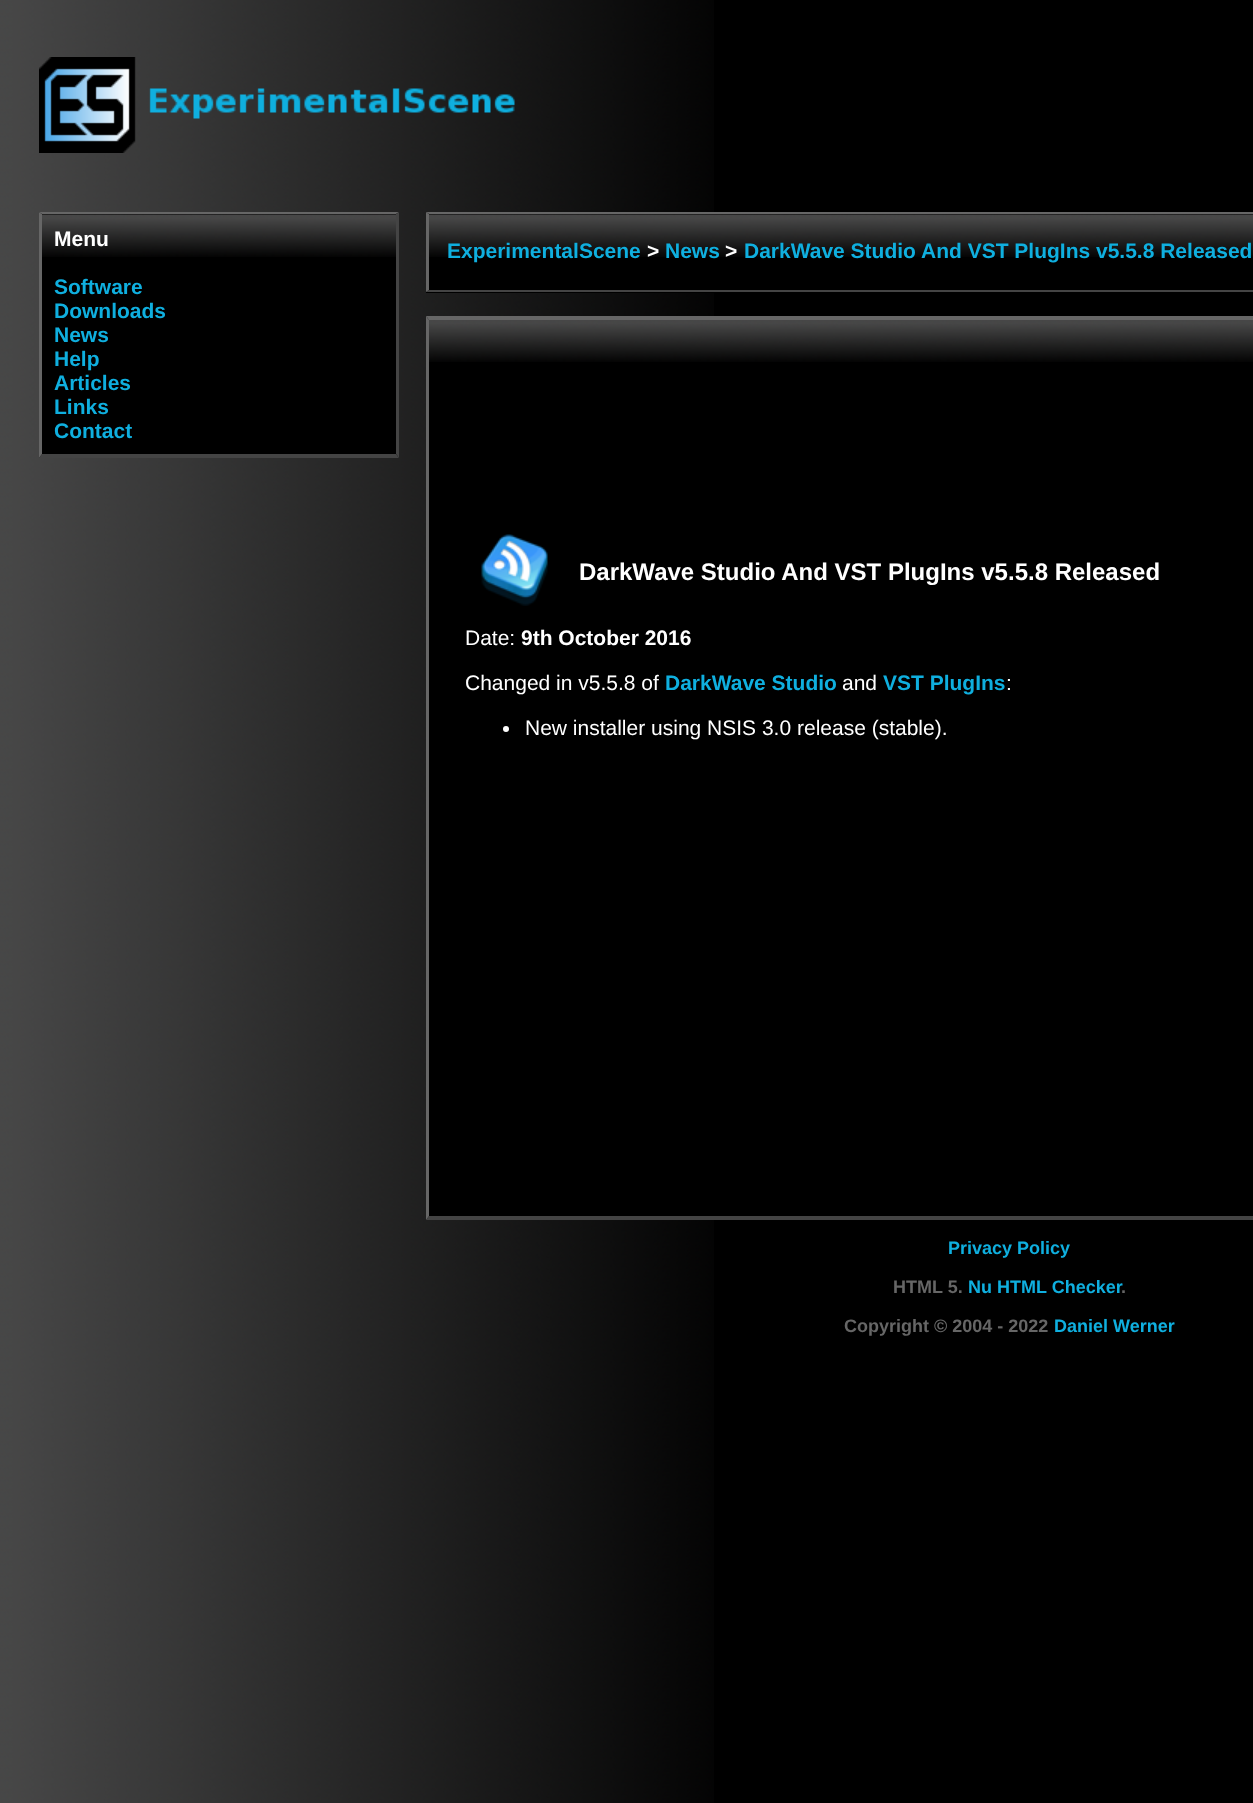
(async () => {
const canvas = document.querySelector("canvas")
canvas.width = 1253
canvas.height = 1803
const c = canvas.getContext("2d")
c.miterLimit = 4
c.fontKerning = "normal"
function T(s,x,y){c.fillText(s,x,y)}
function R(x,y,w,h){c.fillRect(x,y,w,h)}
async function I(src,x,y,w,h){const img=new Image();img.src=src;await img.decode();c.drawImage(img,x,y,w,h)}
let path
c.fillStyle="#000"
R(0,0,1253,1803)
await I("1.png",0,0,714,1803)
await I("2.png",39,57,476,96)
R(39,212,360,246)
await I("3.png",42,214,354,43)
c.fillStyle="#666"
path = new Path2D("M39 212h360l-3 2h-354z")
c.fill(path)
c.fillStyle="#444"
path = new Path2D("M399 212v246l-3-4v-240z")
c.fill(path)
path = new Path2D("M399 458h-360l3-4h354z")
c.fill(path)
c.fillStyle="#666"
path = new Path2D("M39 458v-246l3 2v240z")
c.fill(path)
c.font="bold 21px Liberation Sans"
c.fillStyle="#fff"
T("Menu",54,246)
c.fillStyle="#0fafdf"
T("Software",54,294)
T("Downloads",54,318)
T("News",54,342)
T("Help",54,366)
T("Articles",54,390)
T("Links",54,414)
T("Contact",54,438)
c.fillStyle="#000"
R(426,212,288,81)
await I("4.png",429,214,824,43)
c.fillStyle="#666"
path = new Path2D("M426 212h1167l-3 2h-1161z")
c.fill(path)
c.fillStyle="#444"
path = new Path2D("M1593 292h-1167l3-2h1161z")
c.fill(path)
c.fillStyle="#666"
path = new Path2D("M426 292v-80l3 2v76z")
c.fill(path)
c.fillStyle="#0fafdf"
T("ExperimentalScene",447,258)
c.fillStyle="#fff"
T(">",647,258)
c.fillStyle="#0fafdf"
T("News",665,258)
c.fillStyle="#fff"
T(">",725,258)
c.fillStyle="#0fafdf"
T("DarkWave Studio And VST PlugIns v5.5.8 Released",744,258)
c.fillStyle="#000"
R(426,317,288,903)
await I("5.png",428,319,825,43)
c.fillStyle="#666"
path = new Path2D("M426 316h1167l-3 4h-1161z")
c.fill(path)
c.fillStyle="#444"
path = new Path2D("M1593 1220h-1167l3-4h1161z")
c.fill(path)
c.fillStyle="#666"
path = new Path2D("M426 1220v-904l3 4v896z")
c.fill(path)
await I("6.png",481,534,67,72)
c.font="bold 24px Liberation Sans"
c.fillStyle="#fff"
T("DarkWave Studio And VST PlugIns v5.5.8 Released",579,580)
c.font="21px Liberation Sans"
T("Date:",465,645)
c.font="bold 21px Liberation Sans"
T("9th October 2016",521,645)
c.font="21px Liberation Sans"
T("Changed in v5.5.8 of",465,690)
c.font="bold 21px Liberation Sans"
c.fillStyle="#0fafdf"
T("DarkWave Studio",665,690)
c.font="21px Liberation Sans"
c.fillStyle="#fff"
T("and",842,690)
c.font="bold 21px Liberation Sans"
c.fillStyle="#0fafdf"
T("VST PlugIns",883,690)
c.font="21px Liberation Sans"
c.fillStyle="#fff"
T(":",1006,690)
c.beginPath()
c.arc(506,729,3,0,7)
c.fill()
T("New installer using NSIS 3.0 release (stable).",525,735)
c.font="bold 18px Liberation Sans"
c.fillStyle="#0fafdf"
T("Privacy Policy",948,1254)
c.fillStyle="#666"
T("HTML 5.",893,1293)
c.fillStyle="#0fafdf"
T("Nu HTML Checker",968,1293)
c.fillStyle="#666"
T(".",1121,1293)
T("Copyright © 2004 - 2022",844,1332)
c.fillStyle="#0fafdf"
T("Daniel Werner",1054,1332)
})()
